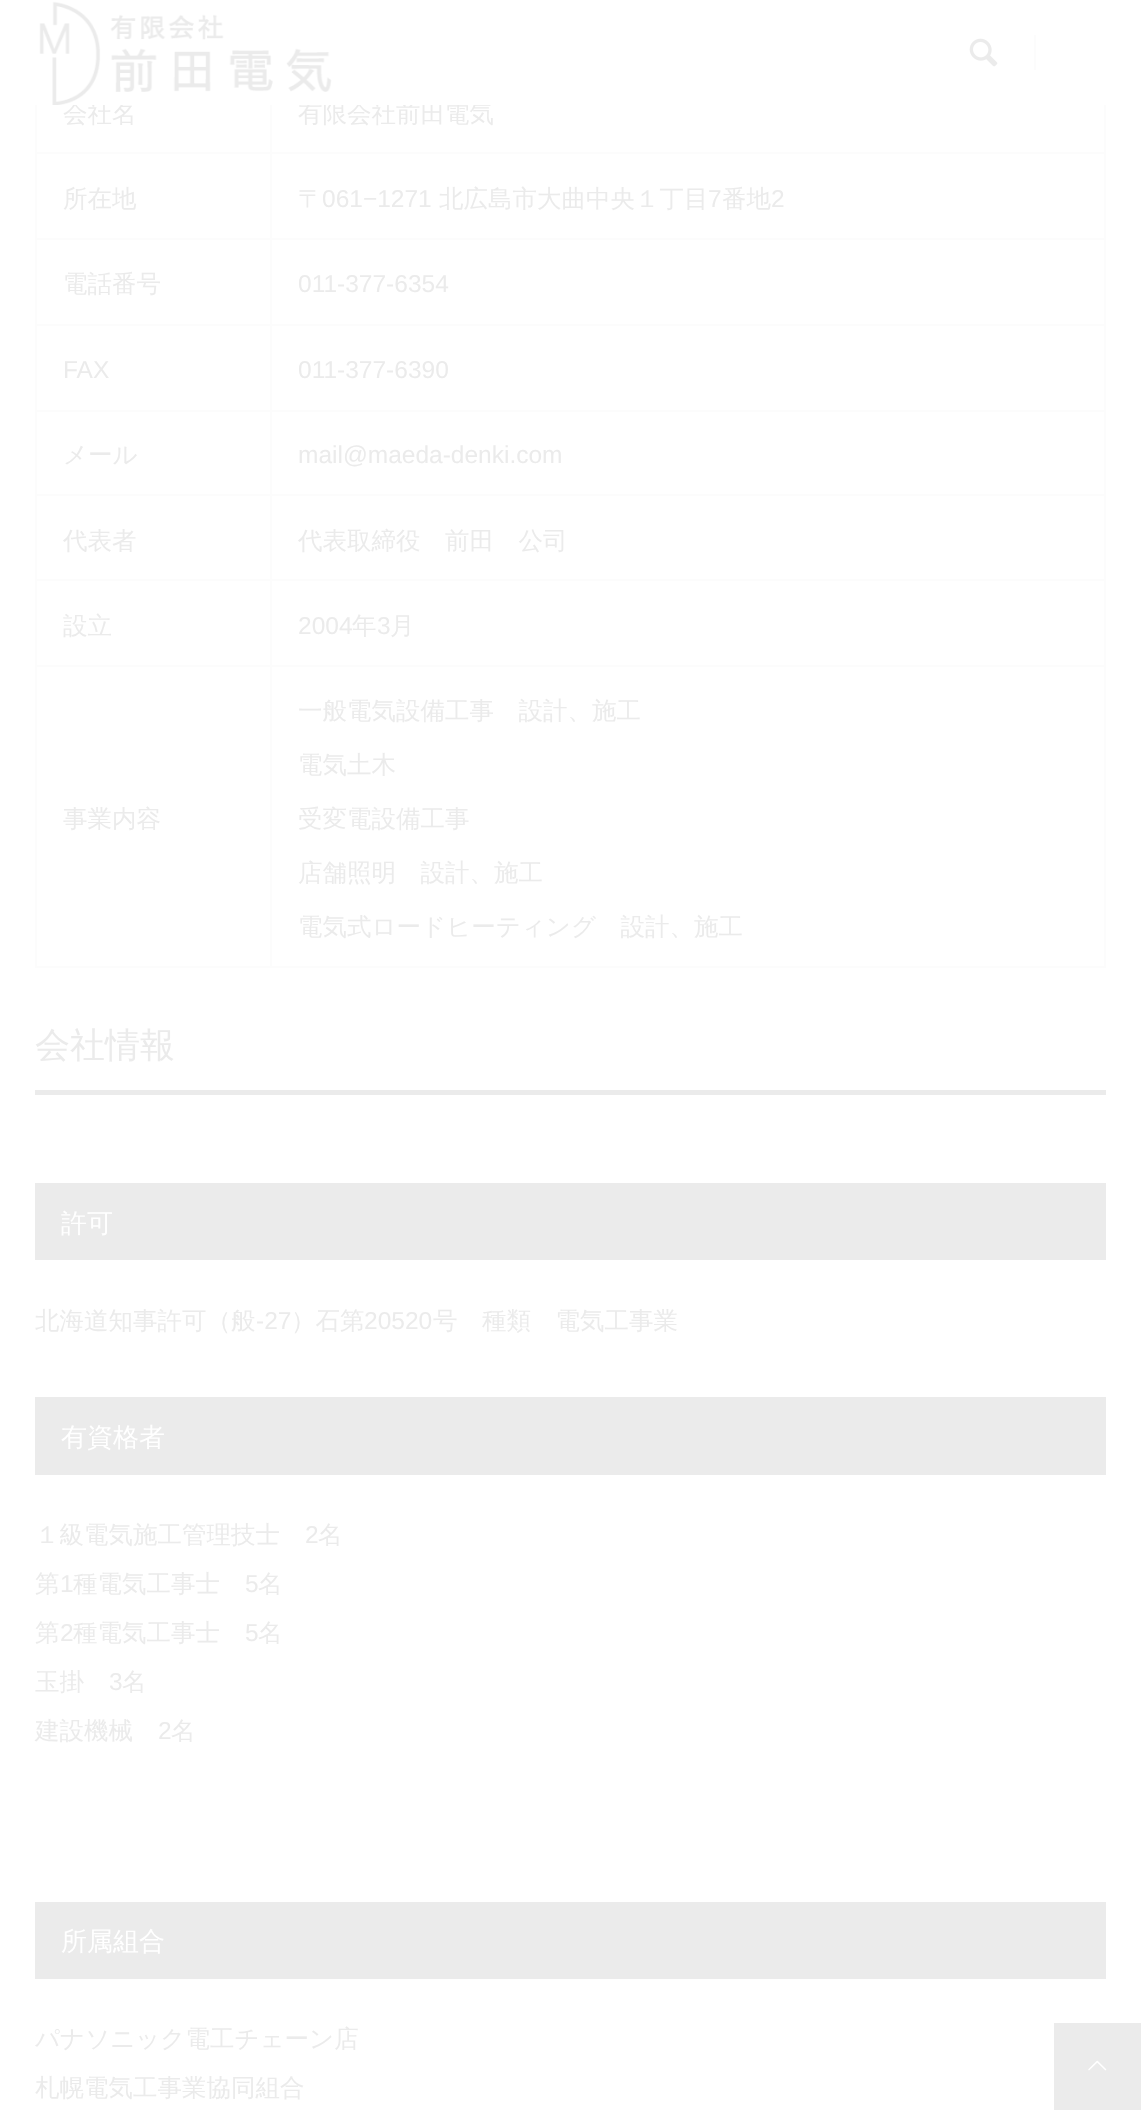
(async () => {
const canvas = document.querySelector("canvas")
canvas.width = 1141
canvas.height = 2110
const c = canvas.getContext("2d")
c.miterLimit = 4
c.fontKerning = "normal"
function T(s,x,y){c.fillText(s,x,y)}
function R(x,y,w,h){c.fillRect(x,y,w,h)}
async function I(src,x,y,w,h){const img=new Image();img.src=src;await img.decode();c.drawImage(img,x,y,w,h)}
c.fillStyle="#fff"
R(0,0,1141,2110)
c.font="500 24.5px WenQuanYi Zen Hei"
c.fillStyle="#ebebeb"
T("会社名",63,122)
T("有限会社前田電気",298,122)
c.fillStyle="#fff"
R(73,101,418,4)
await I("1.png",39,1,293,104)
await I("2.png",969,38,29,29)
c.fillStyle="#fcfcfc"
R(1034,35,2,35)
R(270,152,836,2)
R(270,238,836,2)
R(270,324,836,2)
R(270,410,836,2)
R(270,494,836,2)
R(270,579,836,2)
R(270,665,836,2)
R(1104,665,2,303)
R(270,966,836,2)
R(270,665,2,303)
R(35,665,236,2)
R(270,579,2,88)
R(35,579,236,2)
R(270,494,2,87)
R(35,494,236,2)
R(270,410,2,85)
R(35,410,236,2)
R(270,324,2,87)
R(35,324,236,2)
R(270,238,2,88)
R(35,238,236,2)
R(270,152,2,88)
R(35,152,236,2)
R(270,105,2,49)
R(35,966,236,2)
R(35,665,2,303)
R(35,579,2,88)
R(35,494,2,87)
R(35,410,2,85)
R(35,324,2,87)
R(35,238,2,88)
R(35,105,2,135)
c.fillStyle="#ebebeb"
T("所在地",63,207)
c.fillStyle="#fcfcfc"
R(1104,579,2,88)
R(1104,494,2,87)
R(1104,410,2,85)
R(1104,324,2,87)
R(1104,238,2,88)
R(1104,105,2,135)
c.fillStyle="#ebebeb"
T("〒",298,207)
c.font="24.5px Liberation Sans"
T("061−1271",322,207)
c.font="500 24.5px WenQuanYi Zen Hei"
T("北広島市大曲中央１丁目",439,207)
c.font="24.5px Liberation Sans"
T("7",708,207)
c.font="500 24.5px WenQuanYi Zen Hei"
T("番地",722,207)
c.font="24.5px Liberation Sans"
T("2",771,207)
c.font="500 24.5px WenQuanYi Zen Hei"
T("電話番号",63,292)
c.font="24.5px Liberation Sans"
T("011-377-6354",298,292)
T("FAX",63,378)
T("011-377-6390",298,378)
c.font="500 24.5px WenQuanYi Zen Hei"
T("メール",63,463)
c.font="24.5px Liberation Sans"
T("mail@maeda-denki.com",298,463)
c.font="500 24.5px WenQuanYi Zen Hei"
T("代表者",63,549)
T("代表取締役　前田　公司",298,549)
T("設立",63,634)
c.font="24.5px Liberation Sans"
T("2004",298,634)
c.font="500 24.5px WenQuanYi Zen Hei"
T("年",352,634)
c.font="24.5px Liberation Sans"
T("3",377,634)
c.font="500 24.5px WenQuanYi Zen Hei"
T("月",390,634)
T("事業内容",63,827)
T("一般電気設備工事　設計、施工",298,719)
T("電気土木",298,773)
T("受変電設備工事",298,827)
T("店舗照明　設計、施工",298,881)
T("電気式ロードヒーティング　設計、施工",298,935)
R(35,1090,1071,5)
c.font="500 35px WenQuanYi Zen Hei"
T("会社情報",35,1057)
R(35,1183,1071,77)
c.font="500 26px WenQuanYi Zen Hei"
c.fillStyle="#fff"
T("許可",61,1232)
c.font="500 24.5px WenQuanYi Zen Hei"
c.fillStyle="#ebebeb"
T("北海道知事許可（般",35,1329)
c.font="24.5px Liberation Sans"
T("-27",256,1329)
c.font="500 24.5px WenQuanYi Zen Hei"
T("）石第",291,1329)
c.font="24.5px Liberation Sans"
T("20520",364,1329)
c.font="500 24.5px WenQuanYi Zen Hei"
T("号　種類　電気工事業",433,1329)
R(35,1397,1071,78)
c.font="500 26px WenQuanYi Zen Hei"
c.fillStyle="#fff"
T("有資格者",61,1446)
c.font="500 24.5px WenQuanYi Zen Hei"
c.fillStyle="#ebebeb"
T("１級電気施工管理技士",35,1543)
c.font="24.5px Liberation Sans"
T("2",305,1543)
c.font="500 24.5px WenQuanYi Zen Hei"
T("名",318,1543)
T("第",35,1592)
c.font="24.5px Liberation Sans"
T("1",60,1592)
c.font="500 24.5px WenQuanYi Zen Hei"
T("種電気工事士",73,1592)
c.font="24.5px Liberation Sans"
T("5",245,1592)
c.font="500 24.5px WenQuanYi Zen Hei"
T("名",258,1592)
T("第",35,1641)
c.font="24.5px Liberation Sans"
T("2",60,1641)
c.font="500 24.5px WenQuanYi Zen Hei"
T("種電気工事士",73,1641)
c.font="24.5px Liberation Sans"
T("5",245,1641)
c.font="500 24.5px WenQuanYi Zen Hei"
T("名",258,1641)
T("玉掛",35,1690)
c.font="24.5px Liberation Sans"
T("3",109,1690)
c.font="500 24.5px WenQuanYi Zen Hei"
T("名",122,1690)
T("建設機械",35,1739)
c.font="24.5px Liberation Sans"
T("2",158,1739)
c.font="500 24.5px WenQuanYi Zen Hei"
T("名",171,1739)
R(35,1902,1071,77)
c.font="500 26px WenQuanYi Zen Hei"
c.fillStyle="#fff"
T("所属組合",61,1950)
c.font="500 24.5px WenQuanYi Zen Hei"
c.fillStyle="#ebebeb"
T("パナソニック電工チェーン店",35,2047)
T("札幌電気工事業協同組合",35,2096)
R(1054,2023,87,87)
await I("3.png",1088,2060,19,11)
})()
